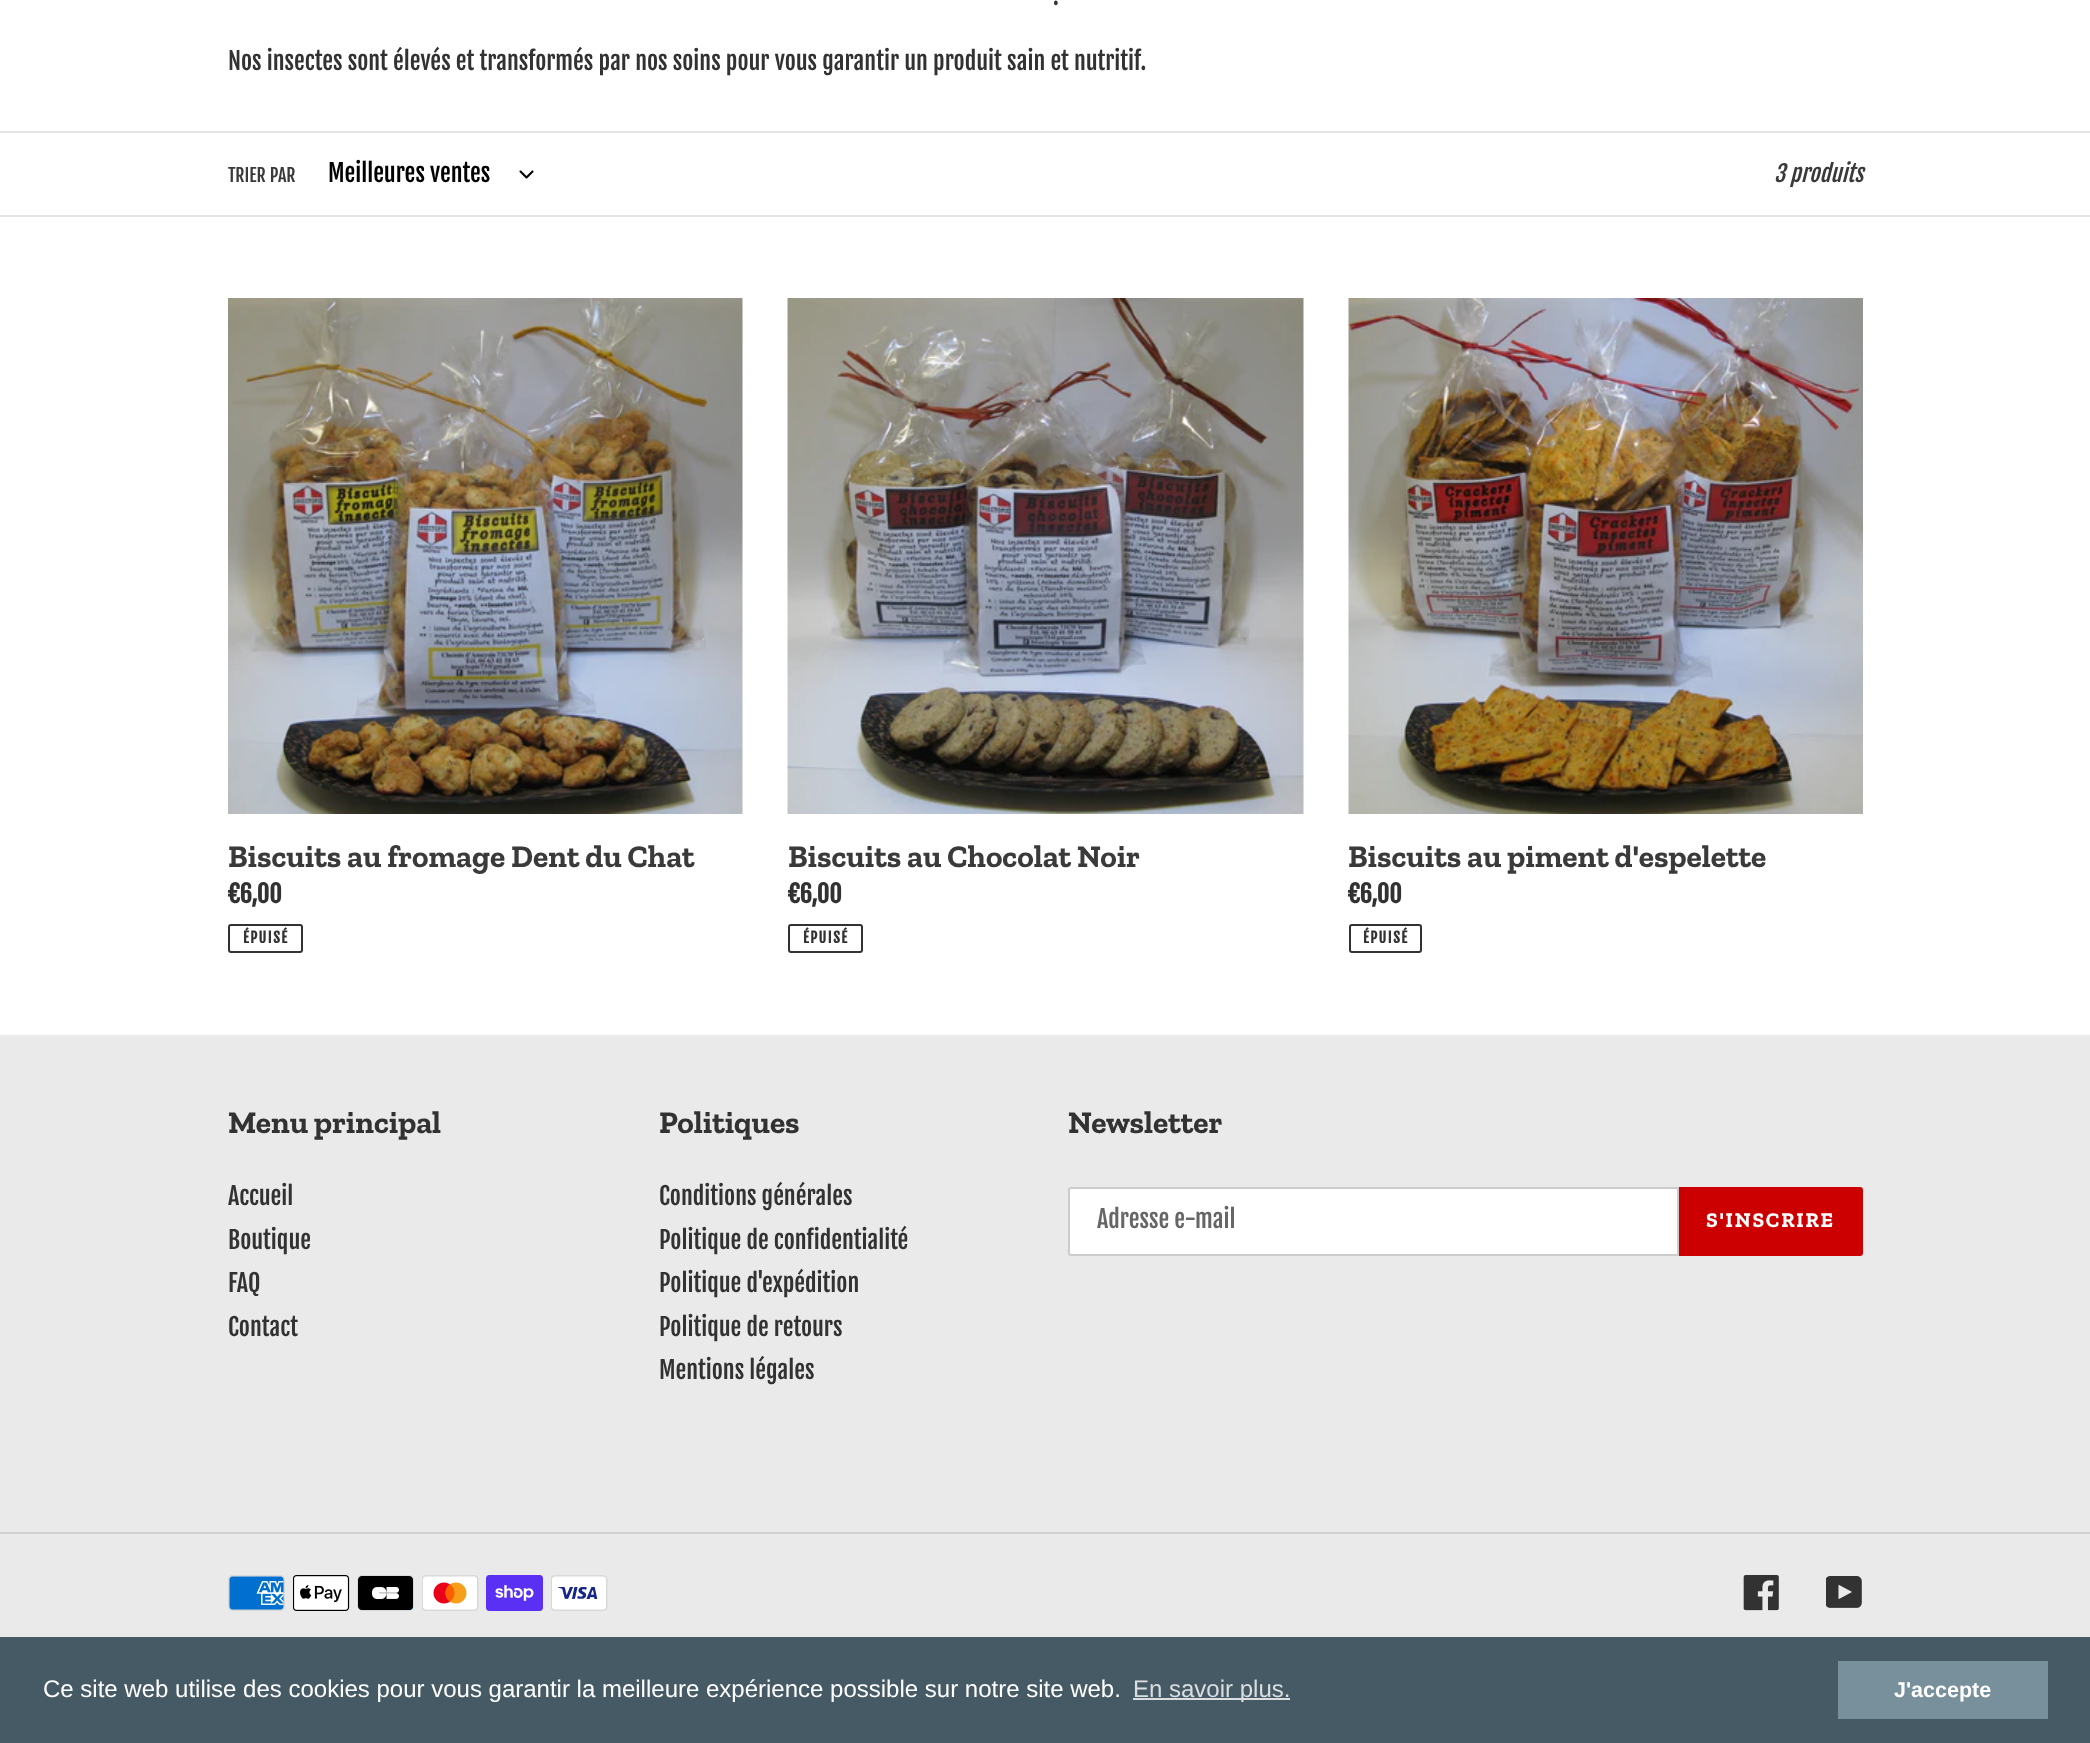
(async () => {
const canvas = document.querySelector("canvas")
canvas.width = 2090
canvas.height = 1743
const c = canvas.getContext("2d")
c.miterLimit = 4
c.fontKerning = "normal"
function T(s,x,y){c.fillText(s,x,y)}
function R(x,y,w,h){c.fillRect(x,y,w,h)}
async function I(src,x,y,w,h){const img=new Image();img.src=src;await img.decode();c.drawImage(img,x,y,w,h)}
c.fillStyle="#fff"
R(0,0,2090,1743)
c.font="24px Fjalla One"
c.fillStyle="#333232"
T(".",1053,5)
T("Nos insectes sont élevés et transformés par nos soins pour vous garantir un produit sain et nutritif.",228,70)
c.fillStyle="#e4e4e4"
R(0,131,2090,2)
R(0,215,2090,2)
c.font="18px Fjalla One"
c.fillStyle="#3a3a3a"
T("TRIER PAR",228,182)
c.font="24px Fjalla One"
c.fillStyle="#000"
T("Meilleures ventes",328,182)
await I("1.png",519,170,15,9)
c.font="italic 22.5px Fjalla One"
c.fillStyle="#3a3a3a"
T("3 produits",1774,182)
await I("2.png",228,298,515,516)
c.font="bold 31.5px Zilla Slab"
T("Biscuits au fromage Dent du Chat",228,867)
c.font="bold 24px Fjalla One"
c.fillStyle="#333232"
T("€6,00",228,903)
c.beginPath()
c.roundRect(229,925,73,27,2)
c.strokeStyle="#333232"
c.lineWidth=2
c.stroke()
c.letterSpacing="1.5px"
c.font="bold 14.5px Fjalla One"
T("ÉPUISÉ",243,943)
await I("3.png",787,298,517,516)
c.letterSpacing="0px"
c.font="bold 31.5px Zilla Slab"
c.fillStyle="#3a3a3a"
T("Biscuits au Chocolat Noir",788,867)
c.font="bold 24px Fjalla One"
c.fillStyle="#333232"
T("€6,00",788,903)
c.beginPath()
c.roundRect(789,925,73,27,2)
c.stroke()
c.letterSpacing="1.5px"
c.font="bold 14.5px Fjalla One"
T("ÉPUISÉ",803,943)
await I("4.png",1348,298,515,516)
c.letterSpacing="0px"
c.font="bold 31.5px Zilla Slab"
c.fillStyle="#3a3a3a"
T("Biscuits au piment d'espelette",1348,867)
c.font="bold 24px Fjalla One"
c.fillStyle="#333232"
T("€6,00",1348,903)
c.beginPath()
c.roundRect(1350,925,71,27,2)
c.stroke()
c.letterSpacing="1.5px"
c.font="bold 14.5px Fjalla One"
T("ÉPUISÉ",1363,943)
c.fillStyle="#eaeaea"
R(0,1035,2090,602)
c.letterSpacing="0px"
c.font="bold 31.5px Zilla Slab"
c.fillStyle="#333232"
T("Menu principal",228,1133)
c.font="24px Fjalla One"
T("Accueil",228,1205)
T("Boutique",228,1249)
T("FAQ",228,1292)
T("Contact",228,1336)
c.font="bold 31.5px Zilla Slab"
T("Politiques",659,1133)
c.font="24px Fjalla One"
T("Conditions générales",659,1205)
T("Politique de confidentialité",659,1249)
T("Politique d'expédition",659,1292)
T("Politique de retours",659,1336)
T("Mentions légales",659,1379)
c.font="bold 31.5px Zilla Slab"
T("Newsletter",1068,1133)
c.fillStyle="#fff"
c.beginPath()
c.roundRect(1069,1188,609,67,[2,0,0,2])
c.fill()
c.strokeStyle="#ccc"
c.stroke()
c.font="24px Fjalla One"
c.fillStyle="#666"
T("Adresse e-mail",1097,1228)
c.fillStyle="#cc0001"
c.beginPath()
c.roundRect(1679,1187,184,69,[0,3,3,0])
c.fill()
c.letterSpacing="1.75px"
c.font="bold 21px Zilla Slab"
c.fillStyle="#fff"
T("S'INSCRIRE",1706,1227)
c.fillStyle="#d1d1d1"
R(0,1532,2090,2)
await I("5.png",228,1575,57,36)
await I("6.png",293,1575,57,36)
await I("7.png",357,1575,57,36)
await I("8.png",422,1575,57,36)
await I("9.png",486,1575,57,36)
await I("10.png",551,1575,57,36)
await I("11.png",1743,1575,36,36)
await I("12.png",1826,1576,36,32)
c.fillStyle="#455a64"
R(0,1637,2090,106)
c.letterSpacing="0px"
c.font="24px Liberation Sans"
c.fillStyle="#fff"
T("Ce site web utilise des cookies pour vous garantir la meilleure expérience possible sur notre site web.",43,1697)
c.fillStyle="#dadee0"
R(1133,1698,157,2)
T("En savoir plus.",1133,1697)
c.fillStyle="#78909c"
R(1838,1661,210,58)
c.font="bold 21.5px Liberation Sans"
c.fillStyle="#fff"
T("J'accepte",1894,1697)
})()
